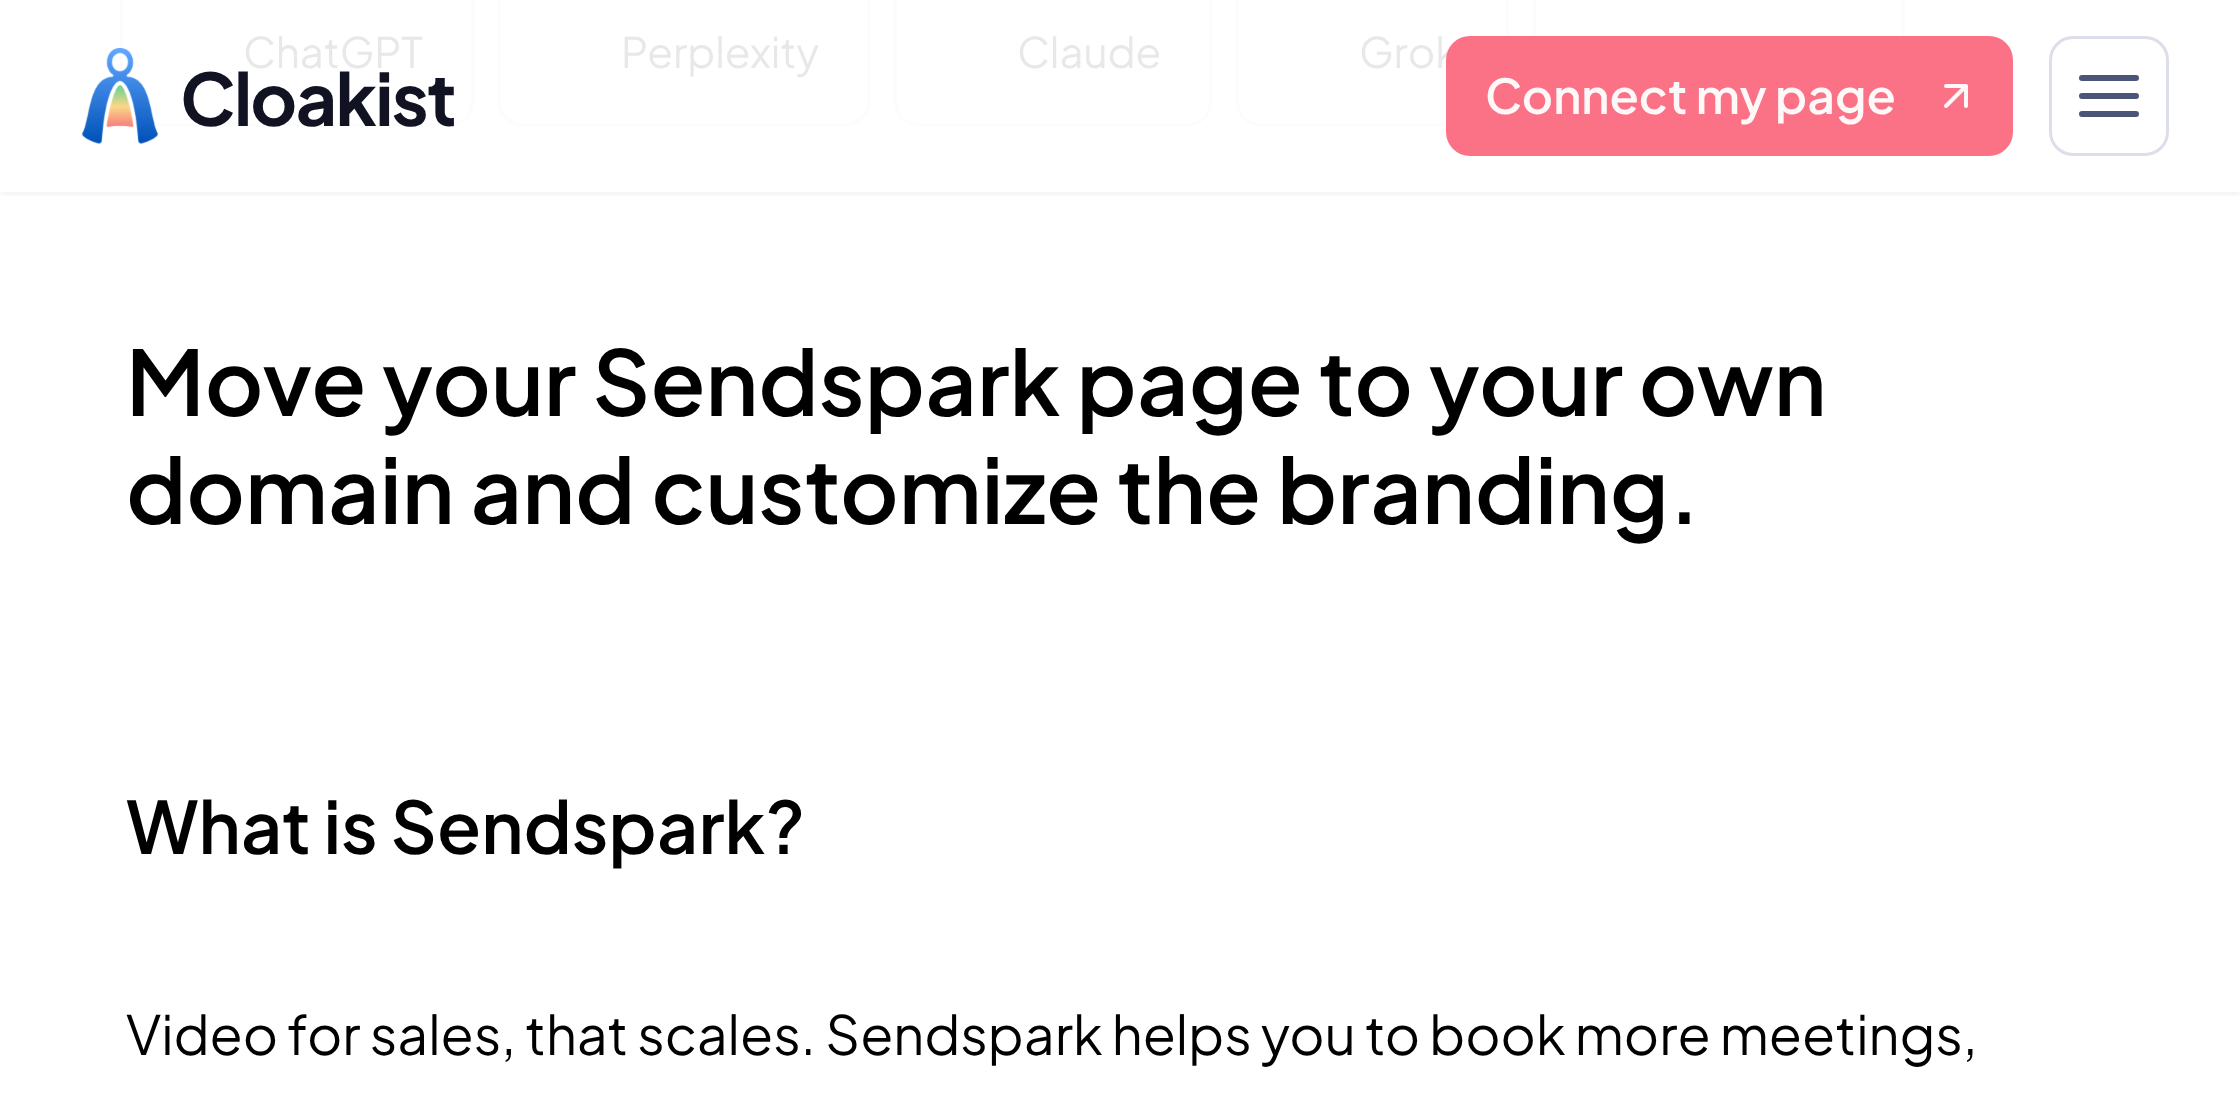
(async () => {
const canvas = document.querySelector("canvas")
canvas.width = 2240
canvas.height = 1095
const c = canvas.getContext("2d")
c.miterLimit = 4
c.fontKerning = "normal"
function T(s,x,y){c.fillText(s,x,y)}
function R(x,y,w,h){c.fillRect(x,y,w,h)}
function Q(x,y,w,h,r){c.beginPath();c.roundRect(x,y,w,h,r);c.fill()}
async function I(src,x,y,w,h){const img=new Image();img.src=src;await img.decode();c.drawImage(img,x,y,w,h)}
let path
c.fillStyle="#fff"
R(0,0,2240,1095)
c.beginPath()
c.roundRect(121.5,-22.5,351,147,22.5)
c.strokeStyle="#fcfcfd"
c.lineWidth=3
c.stroke()
c.font="42px Plus Jakarta Sans"
c.fillStyle="#e8e8e8"
T("ChatGPT",243,68)
c.beginPath()
c.roundRect(499.5,-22.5,369,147,22.5)
c.stroke()
T("Perplexity",621,68)
c.beginPath()
c.roundRect(895.5,-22.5,315,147,22.5)
c.stroke()
T("Claude",1017,68)
c.beginPath()
c.roundRect(1237.5,-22.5,270,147,22.5)
c.stroke()
T("Grok",1359,68)
c.strokeRect(1534.5,-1.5,369,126)
c.font="600 90px Plus Jakarta Sans"
c.fillStyle="#000"
T("Move your Sendspark page to your own",126,416)
T("domain and customize the branding.",126,524)
c.font="600 72px Plus Jakarta Sans"
T("What is Sendspark?",126,854)
c.font="54px Plus Jakarta Sans"
T("Video for sales, that scales. Sendspark helps you to book more meetings,",126,1055)
c.save()
c.beginPath()
c.rect(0,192,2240,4)
c.clip()
c.fillStyle="#0000000d"
c.filter="blur(3px)"
c.beginPath()
c.rect(0,3,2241,192)
c.fill()
c.filter="none"
c.restore()
await I("1.png",81,48,78,96)
c.letterSpacing="-1.75px"
c.font="bold 72px Plus Jakarta Sans"
c.fillStyle="#111322"
T("Cloakist",180,126)
c.fillStyle="#fb7185"
Q(1446,36,567,120,24)
c.letterSpacing="0px"
c.font="600 48px Plus Jakarta Sans"
c.fillStyle="#fff8f9"
T("Connect my page",1485,114)
path = new Path2D("M1946 106l20-20m0 0h-20m20 0v20")
c.strokeStyle="#fff8f9"
c.lineWidth=4
c.lineCap="round"
c.lineJoin="round"
c.stroke(path)
c.beginPath()
c.roundRect(2050.5,37.5,117,117,22.5)
c.strokeStyle="#dcdfea"
c.lineWidth=3
c.lineJoin="miter"
c.stroke()
path = new Path2D("M2082 96h54m-54-18h54m-54 36h54")
c.strokeStyle="#4a5578"
c.lineWidth=6
c.lineJoin="round"
c.stroke(path)
})()
